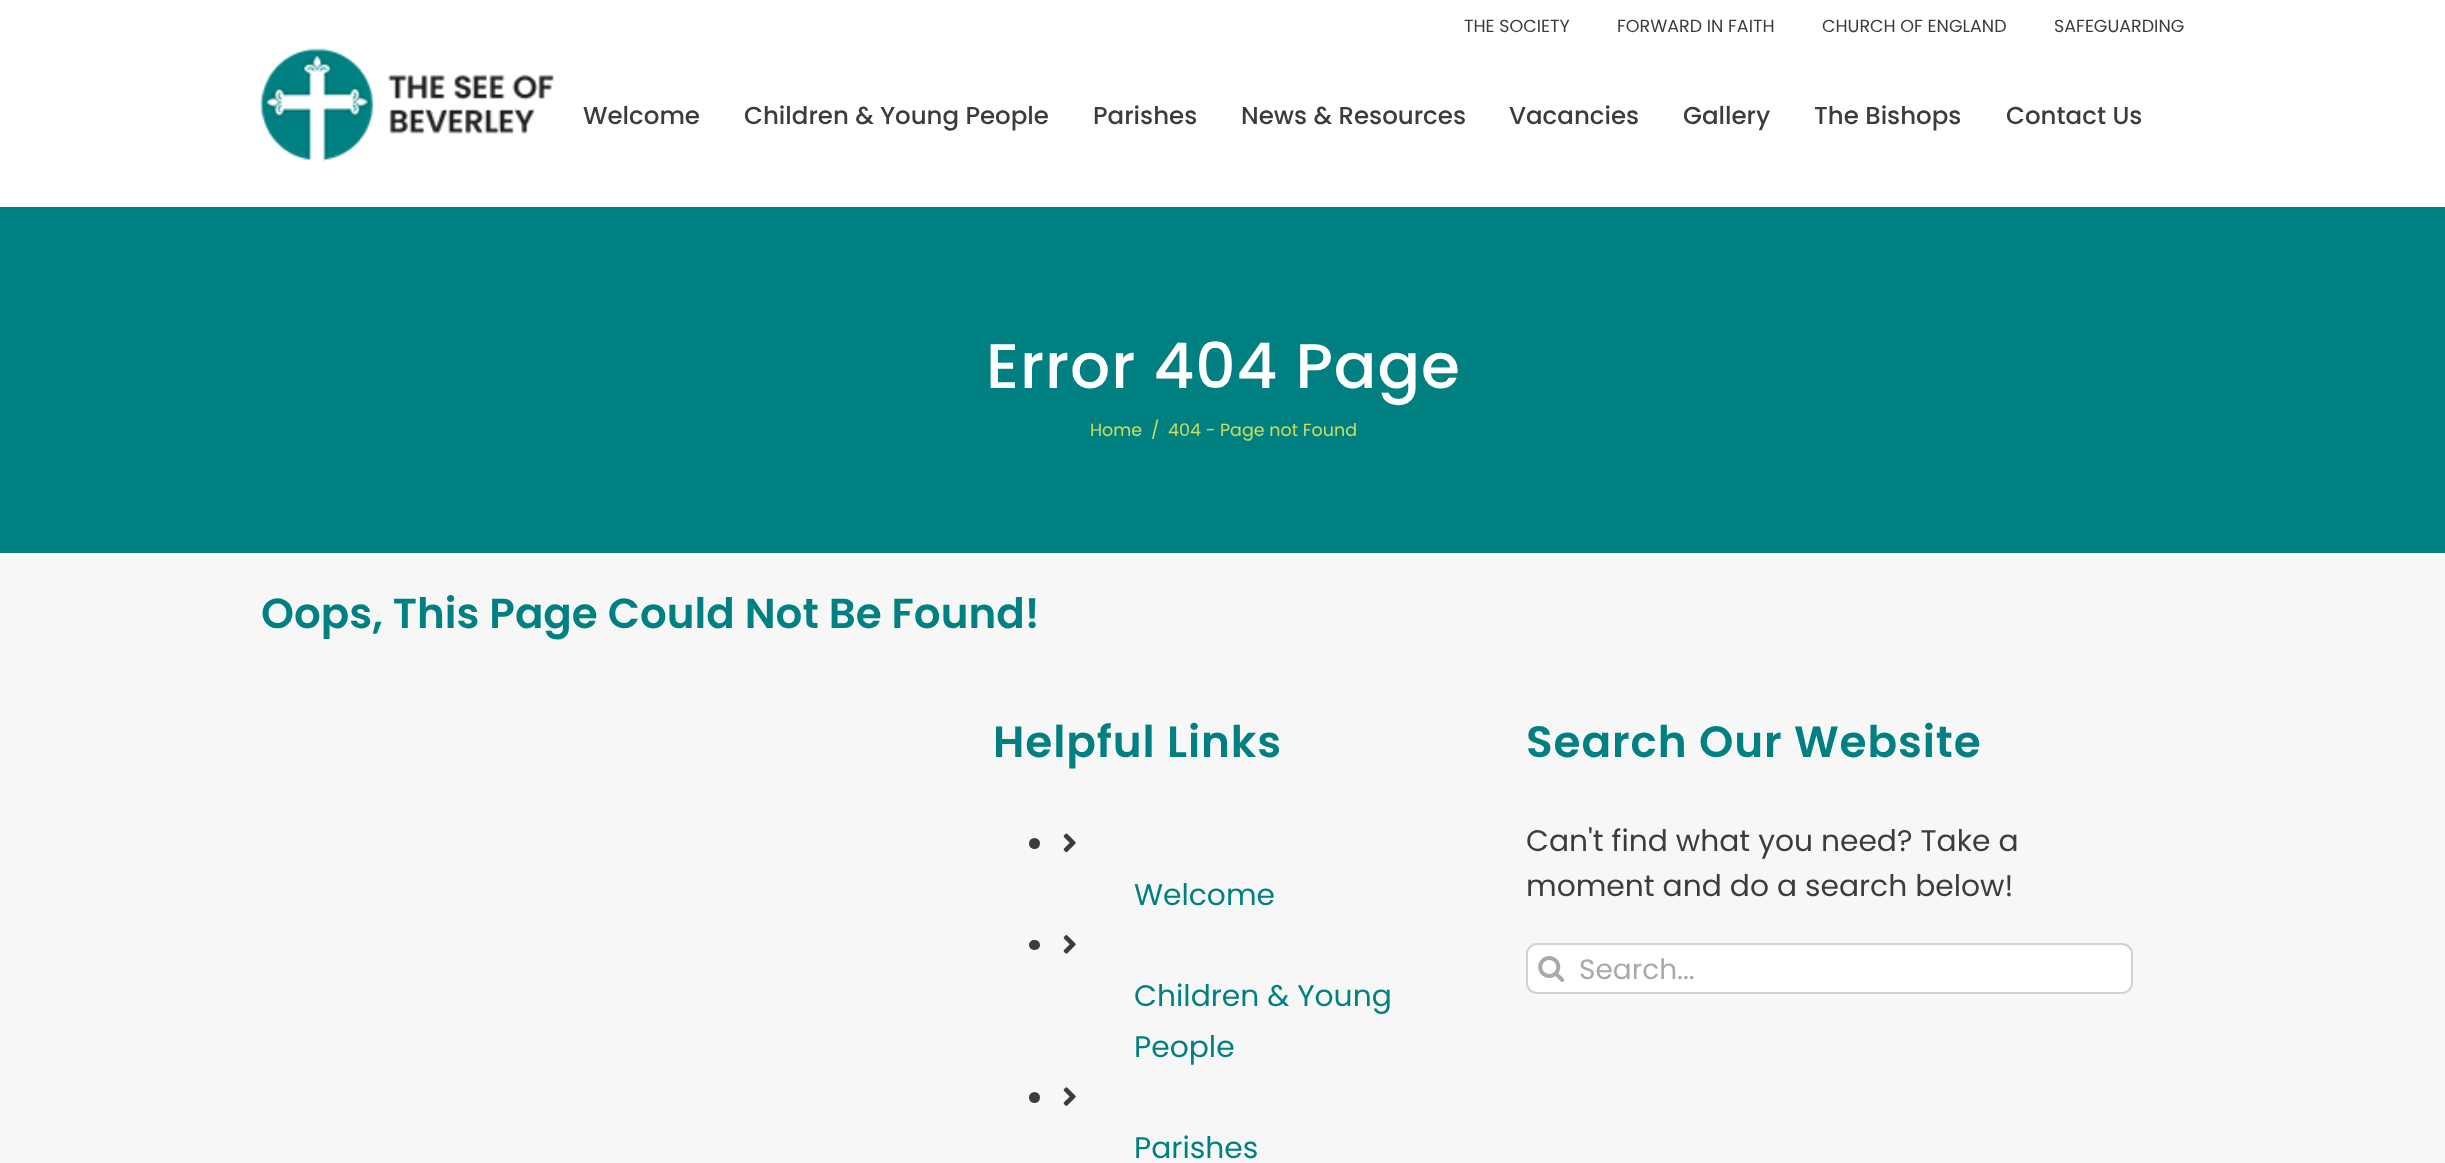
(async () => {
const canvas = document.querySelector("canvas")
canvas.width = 2445
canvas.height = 1163
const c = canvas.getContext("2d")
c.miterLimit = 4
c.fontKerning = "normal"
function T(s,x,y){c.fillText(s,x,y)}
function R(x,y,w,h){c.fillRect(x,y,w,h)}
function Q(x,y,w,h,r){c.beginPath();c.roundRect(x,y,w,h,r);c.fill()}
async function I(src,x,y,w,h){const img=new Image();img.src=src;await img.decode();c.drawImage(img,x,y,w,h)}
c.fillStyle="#f7f7f7"
R(0,0,2445,1163)
c.fillStyle="#fff"
R(0,0,2445,205)
c.font="17.5px Poppins"
c.fillStyle="#3c3c3c"
T("THE SOCIETY",1464,32)
T("FORWARD IN FAITH",1617,32)
T("CHURCH OF ENGLAND",1822,32)
T("SAFEGUARDING",2054,32)
await I("1.png",260,48,294,114)
c.font="500 24.5px Poppins"
T("Welcome",583,124)
T("Children & Young People",744,124)
T("Parishes",1093,124)
T("News & Resources",1241,124)
T("Vacancies",1509,124)
T("Gallery",1683,124)
T("The Bishops",1814,124)
T("Contact Us",2006,124)
c.fillStyle="#008080"
R(0,207,2445,346)
c.fillStyle="#fff"
R(0,205,2445,2)
R(0,553,2445,2)
c.letterSpacing="0.9px"
c.font="500 63px Poppins"
T("Error 404 Page",986,388)
c.letterSpacing="0px"
c.font="17.5px Poppins"
c.fillStyle="#d0dc57"
T("Home",1090,436)
T("/",1151,436)
T("404 - Page not Found",1168,436)
c.font="600 42px Poppins"
c.fillStyle="#008080"
T("Oops, This Page Could Not Be Found!",261,628)
c.letterSpacing="0.9px"
c.font="600 43.75px Poppins"
T("Helpful Links",993,757)
c.fillStyle="#3c3c3c"
c.beginPath()
c.arc(1034.5,843.5,5.5,0,7)
c.fill()
await I("2.png",1063,833,13,20)
c.letterSpacing="0px"
c.font="29.75px Poppins"
c.fillStyle="#008080"
T("Welcome",1134,905)
c.fillStyle="#3c3c3c"
Q(1029,940,11,10,5)
await I("3.png",1063,935,13,19)
c.fillStyle="#008080"
T("Children & Young",1134,1006)
T("People",1134,1057)
c.fillStyle="#3c3c3c"
c.beginPath()
c.arc(1034.5,1097.5,5.5,0,7)
c.fill()
await I("4.png",1063,1087,13,19)
c.fillStyle="#008080"
T("Parishes",1134,1158)
c.letterSpacing="0.9px"
c.font="600 43.75px Poppins"
T("Search Our Website",1526,757)
c.letterSpacing="0px"
c.font="29.75px Poppins"
c.fillStyle="#3c3c3c"
T("Can't find what you need? Take a",1526,851)
T("moment and do a search below!",1526,896)
c.fillStyle="#fff"
c.beginPath()
c.roundRect(1527,944,605,49,10)
c.fill()
c.strokeStyle="#d2d2d2"
c.lineWidth=2
c.stroke()
await I("5.png",1538,956,27,26)
c.font="28px Poppins"
c.fillStyle="#aaa9a9"
T("Search...",1579,979)
})()
